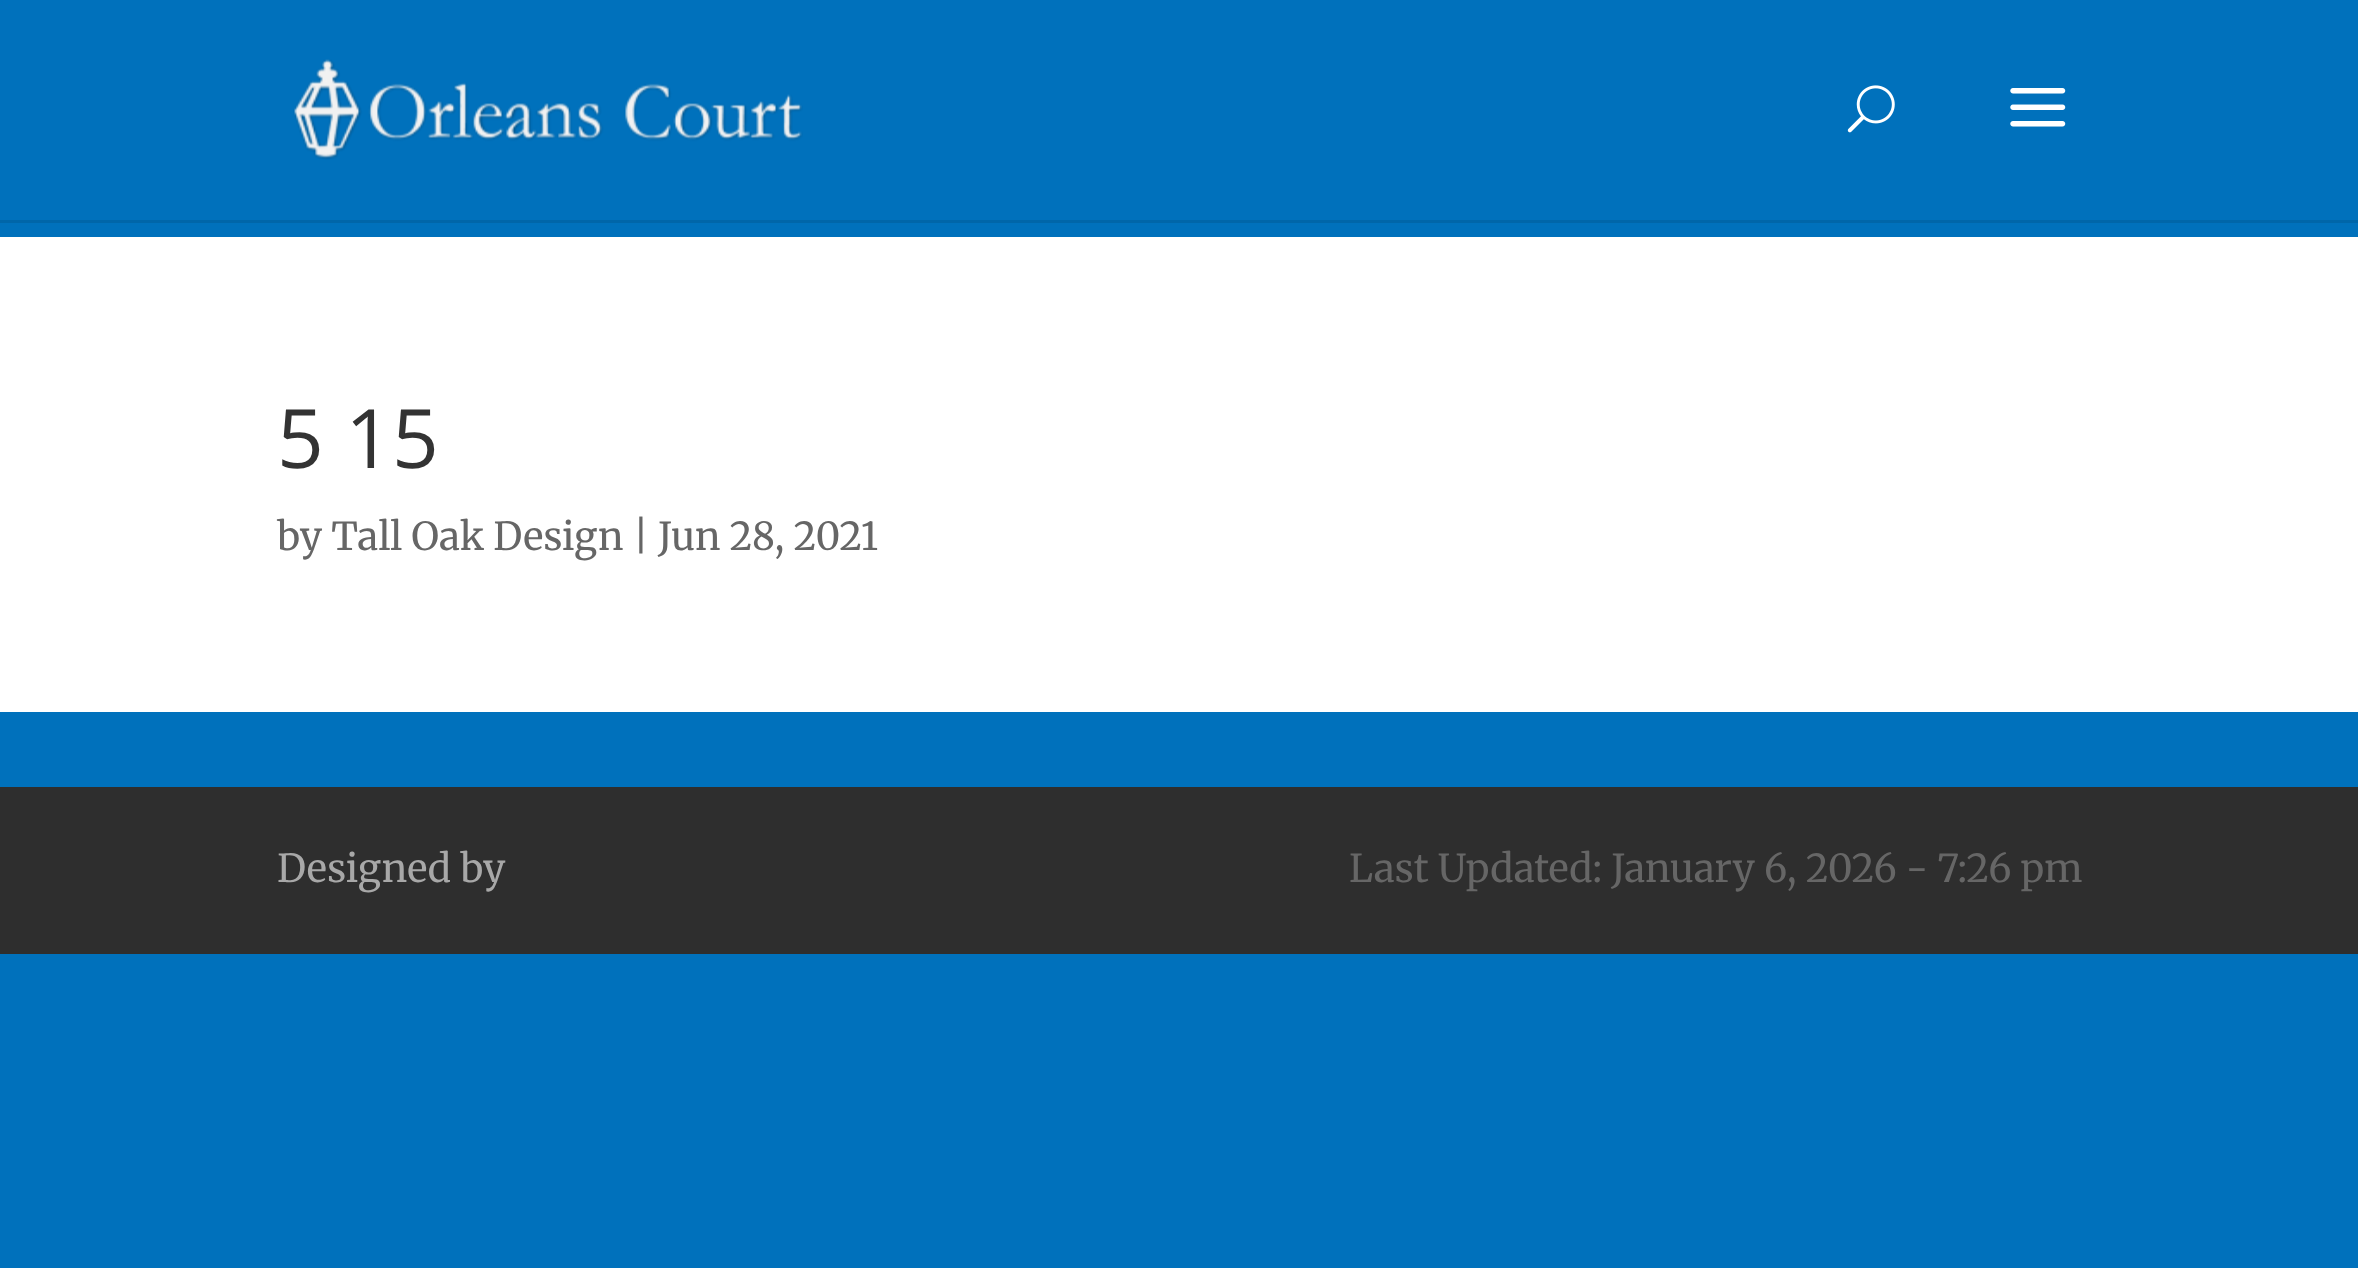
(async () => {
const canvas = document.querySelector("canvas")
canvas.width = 2358
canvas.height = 1268
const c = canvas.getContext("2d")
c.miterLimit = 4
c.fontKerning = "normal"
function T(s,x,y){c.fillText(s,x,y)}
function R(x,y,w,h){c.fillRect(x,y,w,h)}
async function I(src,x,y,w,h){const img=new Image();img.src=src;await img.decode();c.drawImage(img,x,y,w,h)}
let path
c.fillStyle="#0071bc"
R(0,0,2358,1268)
c.fillStyle="#0066a9"
path = new Path2D("M0 220v3h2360v-220v217z")
c.fill(path)
await I("1.png",293,59,510,101)
await I("2.png",1847,85,48,48)
await I("3.png",2010,88,56,39)
c.fillStyle="#fff"
R(0,237,2358,475)
c.font="82px Open Sans"
c.fillStyle="#333"
T("5 15",277,468)
c.font="38.5px Merriweather"
c.fillStyle="#666"
T("by Tall Oak Design | Jun 28, 2021",277,550)
c.fillStyle="#2e2e2e"
R(0,787,2358,167)
c.fillStyle="#a8a8a8"
T("Designed by",277,882)
c.fillStyle="#666"
T("Last Updated: January 6, 2026 - 7:26 pm",1349,882)
})()
